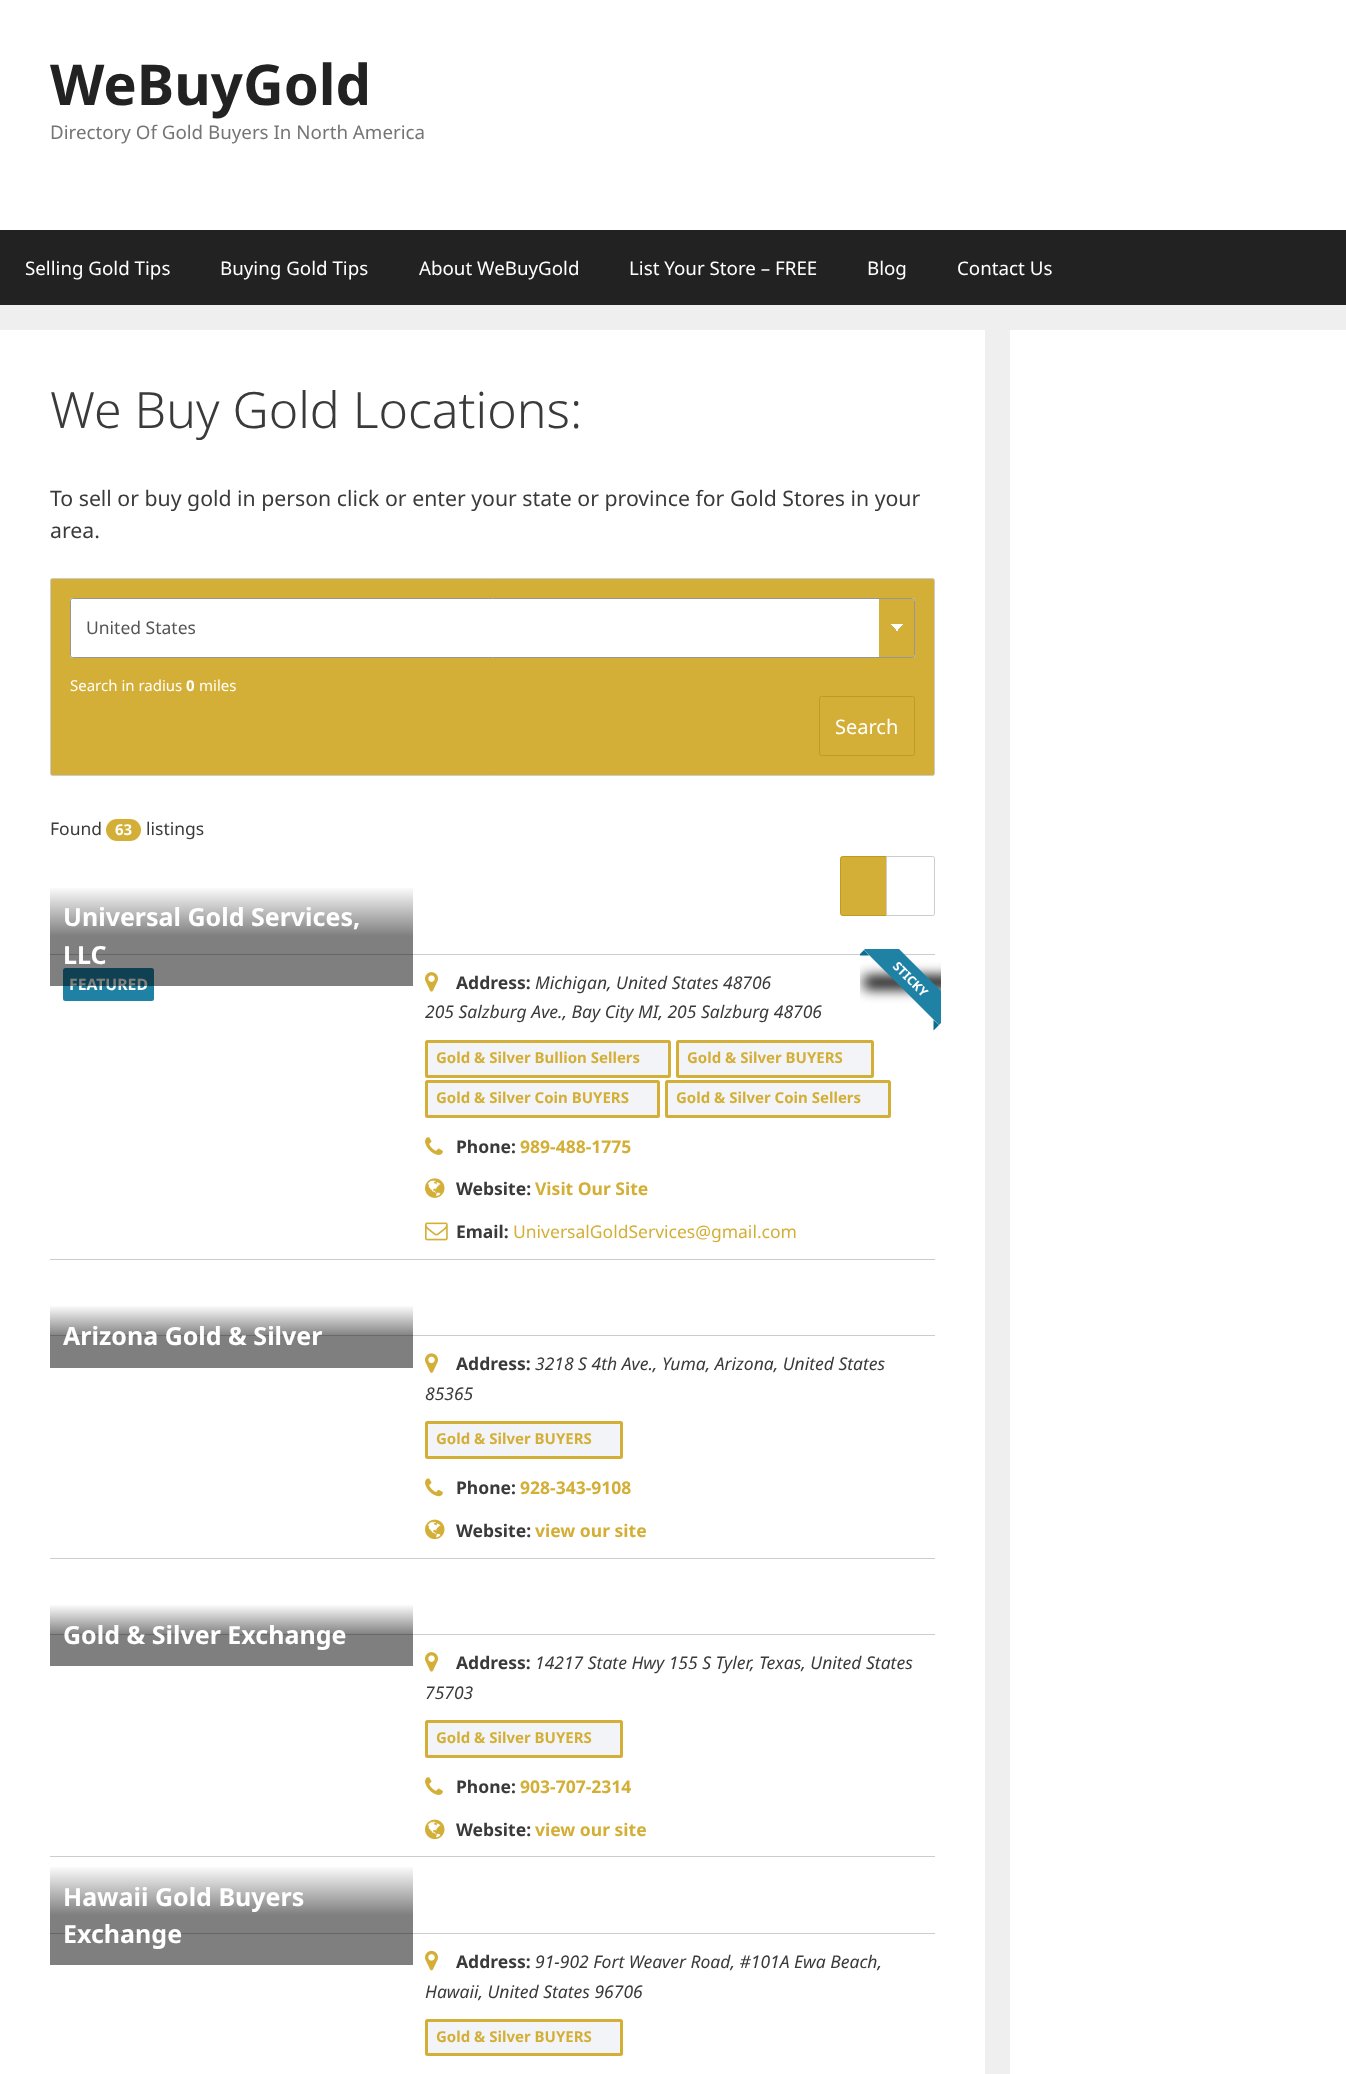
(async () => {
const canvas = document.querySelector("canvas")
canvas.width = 1346
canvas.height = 2074
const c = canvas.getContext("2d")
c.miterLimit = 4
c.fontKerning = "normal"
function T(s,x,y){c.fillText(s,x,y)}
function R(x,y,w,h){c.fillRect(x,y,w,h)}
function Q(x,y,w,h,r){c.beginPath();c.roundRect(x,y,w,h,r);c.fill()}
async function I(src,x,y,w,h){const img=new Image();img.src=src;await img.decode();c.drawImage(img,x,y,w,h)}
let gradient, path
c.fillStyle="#efefef"
R(0,0,1346,2074)
c.fillStyle="#fff"
R(0,0,1346,230)
c.font="bold 56.25px Noto Sans"
c.fillStyle="#222"
T("WeBuyGold",50,105)
c.font="18.75px Noto Sans"
c.fillStyle="#757575"
T("Directory Of Gold Buyers In North America",50,139)
c.fillStyle="#222"
R(0,230,1346,75)
c.fillStyle="#fff"
T("Selling Gold Tips",25,275)
T("Buying Gold Tips",220,275)
T("About WeBuyGold",419,275)
T("List Your Store – FREE",629,275)
T("Blog",867,275)
T("Contact Us",957,275)
R(0,330,985,1744)
c.font="300 50px Noto Sans"
c.fillStyle="#3a3a3a"
T("We Buy Gold Locations:",50,428)
c.font="21.25px Noto Sans"
T("To sell or buy gold in person click or enter your state or province for Gold Stores in your",50,506)
T("area.",50,538)
c.fillStyle="#d4af37"
c.beginPath()
c.roundRect(50.5,578.5,884,197,2)
c.fill()
c.strokeStyle="#ccc"
c.stroke()
c.fillStyle="#fff"
Q(70,598,845,60,2.5)
c.fillStyle="#d4af37"
R(879,599,35,59)
gradient = c.createLinearGradient(896,624,904,631)
gradient.addColorStop(.5,"#fff")
gradient.addColorStop(.5,"#d4af37")
c.fillStyle = gradient
R(896,624,8,7)
gradient = c.createLinearGradient(890,631,898,624)
gradient.addColorStop(.5,"#ffffff00")
gradient.addColorStop(.5,"#fff")
c.fillStyle = gradient
R(890,624,8,7)
c.beginPath()
c.roundRect(70.5,598.5,844,59,2)
c.strokeStyle="#969696"
c.stroke()
c.font="17.5px Noto Sans"
c.fillStyle="#555"
T("United States",86,634)
c.font="15px Noto Sans"
c.fillStyle="#fff"
T("Search in radius",70,691)
c.font="bold 15px Noto Sans"
T("0",186,691)
c.font="15px Noto Sans"
T("miles",199,691)
c.beginPath()
c.roundRect(819.5,696.5,95,59,2)
c.strokeStyle="#c09b23"
c.stroke()
c.font="20px Noto Sans"
T("Search",835,734)
c.font="17.5px Noto Sans"
c.fillStyle="#3a3a3a"
T("Found",50,835)
c.fillStyle="#d4af37"
Q(106,819,35,22,11)
c.font="bold 15px Noto Sans"
c.fillStyle="#fff"
T("63",115,835)
c.font="17.5px Noto Sans"
c.fillStyle="#3a3a3a"
T("listings",146,835)
c.fillStyle="#d4af37"
c.beginPath()
c.roundRect(840.5,856.5,47,59,[2,0,0,2])
c.fill()
c.stroke()
c.fillStyle="#fff"
c.beginPath()
c.roundRect(886.5,856.5,48,59,[0,2,2,0])
c.fill()
c.strokeStyle="#ccc"
c.stroke()
c.fillStyle="#ccc"
R(50,954,885,1)
R(50,1259,885,1)
c.fillStyle="#1f82a5"
Q(63,968,91,33,2.5)
c.font="bold 15.75px Noto Sans"
c.fillStyle="#fff"
T("FEATURED",69,990)
gradient = c.createLinearGradient(231,886,231,986)
gradient.addColorStop(0,"#00000000")
gradient.addColorStop(.5,"#00000080")
c.fillStyle = gradient
R(50,888,363,98)
c.font="bold 25px Noto Sans"
c.fillStyle="#fff"
T("Universal Gold Services,",63,926)
T("LLC",63,964)
await I("1.png",425,972,13,20)
c.font="bold 17.5px Noto Sans"
c.fillStyle="#3a3a3a"
T("Address:",456,989)
c.font="italic 17.5px Noto Sans"
T("Michigan, United States 48706",535,989)
T("205 Salzburg Ave., Bay City MI, 205 Salzburg 48706",425,1018)
c.fillStyle="#f3f4f7"
c.beginPath()
c.roundRect(426.5,1041.5,243,35,1)
c.fill()
c.strokeStyle="#d4af37"
c.lineWidth=3
c.stroke()
c.font="bold 15px Noto Sans"
c.fillStyle="#d4af37"
T("Gold & Silver Bullion Sellers",436,1063)
c.fillStyle="#f3f4f7"
c.beginPath()
c.roundRect(677.5,1041.5,195,35,1)
c.fill()
c.stroke()
c.fillStyle="#d4af37"
T("Gold & Silver BUYERS",687,1063)
c.fillStyle="#f3f4f7"
c.beginPath()
c.roundRect(426.5,1081.5,232,35,1)
c.fill()
c.stroke()
c.fillStyle="#d4af37"
T("Gold & Silver Coin BUYERS",436,1103)
c.fillStyle="#f3f4f7"
c.beginPath()
c.roundRect(666.5,1081.5,223,35,1)
c.fill()
c.stroke()
c.fillStyle="#d4af37"
T("Gold & Silver Coin Sellers",676,1103)
await I("2.png",425,1137,18,18)
c.font="bold 17.5px Noto Sans"
c.fillStyle="#3a3a3a"
T("Phone:",456,1153)
c.fillStyle="#d4af37"
T("989-488-1775",520,1153)
await I("3.png",425,1178,20,20)
c.fillStyle="#3a3a3a"
T("Website:",456,1195)
c.fillStyle="#d4af37"
T("Visit Our Site",535,1195)
await I("4.png",425,1222,23,19)
c.fillStyle="#3a3a3a"
T("Email:",456,1238)
c.font="17.5px Noto Sans"
c.fillStyle="#d4af37"
T("UniversalGoldServices@gmail.com",513,1238)
c.save()
c.beginPath()
c.rect(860,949,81,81)
c.clip()
c.fillStyle="#000"
c.filter="blur(6.5px)"
c.beginPath()
c.rect(864,976,94,13)
c.fill()
c.filter="none"
c.restore()
c.save()
c.beginPath()
c.rect(860,949,81,81)
c.clip()
c.fillStyle="#1f82a5"
path = new Path2D("M882 932l75 75l-18 18l-75-75z")
c.fill(path)
c.restore()
c.fillStyle="#0b6e91"
path = new Path2D("M864 950l5 5.5h-5z")
c.fill(path)
c.save()
c.beginPath()
c.rect(860,949,81,81)
c.clip()
path = new Path2D("M858.5 955.5l5.5-5.5v5.5z")
c.fill(path)
c.restore()
c.font="bold 12.5px Noto Sans"
c.fillStyle="#fff"
c.save()
c.translate(892,967)
c.rotate(45 * Math.PI / 180)
c.fillText("STICKY",0,0)
c.restore()
c.fillStyle="#0b6e91"
path = new Path2D("M933.5 1020l5.5 5h-5.5zm5.5 5l-5.5 5.5v-5.5z")
c.fill(path)
c.fillStyle="#ccc"
R(50,1335,885,1)
R(50,1558,885,1)
gradient = c.createLinearGradient(231,1305,231,1368)
gradient.addColorStop(0,"#00000000")
gradient.addColorStop(.5,"#00000080")
c.fillStyle = gradient
R(50,1306,363,62)
c.font="bold 25px Noto Sans"
c.fillStyle="#fff"
T("Arizona Gold & Silver",63,1345)
await I("5.png",425,1353,13,20)
c.font="bold 17.5px Noto Sans"
c.fillStyle="#3a3a3a"
T("Address:",456,1370)
c.font="italic 17.5px Noto Sans"
T("3218 S 4th Ave., Yuma, Arizona, United States",535,1370)
T("85365",425,1400)
c.fillStyle="#f3f4f7"
c.beginPath()
c.roundRect(426.5,1422.5,195,35,1)
c.fill()
c.stroke()
c.font="bold 15px Noto Sans"
c.fillStyle="#d4af37"
T("Gold & Silver BUYERS",436,1444)
await I("6.png",425,1478,18,19)
c.font="bold 17.5px Noto Sans"
c.fillStyle="#3a3a3a"
T("Phone:",456,1494)
c.fillStyle="#d4af37"
T("928-343-9108",520,1494)
await I("7.png",425,1519,20,21)
c.fillStyle="#3a3a3a"
T("Website:",456,1537)
c.fillStyle="#d4af37"
T("view our site",535,1537)
c.fillStyle="#ccc"
R(50,1634,885,1)
R(50,1856,885,1)
gradient = c.createLinearGradient(231,1604,231,1666)
gradient.addColorStop(0,"#00000000")
gradient.addColorStop(.5,"#00000080")
c.fillStyle = gradient
R(50,1605,363,61)
c.font="bold 25px Noto Sans"
c.fillStyle="#fff"
T("Gold & Silver Exchange",63,1644)
await I("1.png",425,1652,13,20)
c.font="bold 17.5px Noto Sans"
c.fillStyle="#3a3a3a"
T("Address:",456,1669)
c.font="italic 17.5px Noto Sans"
T("14217 State Hwy 155 S Tyler",535,1669)
T(", Texas, United States",750,1669)
T("75703",425,1699)
c.fillStyle="#f3f4f7"
c.beginPath()
c.roundRect(426.5,1721.5,195,35,1)
c.fill()
c.stroke()
c.font="bold 15px Noto Sans"
c.fillStyle="#d4af37"
T("Gold & Silver BUYERS",436,1743)
await I("2.png",425,1777,18,18)
c.font="bold 17.5px Noto Sans"
c.fillStyle="#3a3a3a"
T("Phone:",456,1793)
c.fillStyle="#d4af37"
T("903-707-2314",520,1793)
await I("7.png",425,1819,20,21)
c.fillStyle="#3a3a3a"
T("Website:",456,1836)
c.fillStyle="#d4af37"
T("view our site",535,1836)
c.fillStyle="#ccc"
R(50,1933,885,1)
gradient = c.createLinearGradient(231,1865,231,1965)
gradient.addColorStop(0,"#00000000")
gradient.addColorStop(.5,"#00000080")
c.fillStyle = gradient
R(50,1867,363,98)
c.font="bold 25px Noto Sans"
c.fillStyle="#fff"
T("Hawaii Gold Buyers",63,1906)
T("Exchange",63,1943)
await I("8.png",425,1950,13,21)
c.font="bold 17.5px Noto Sans"
c.fillStyle="#3a3a3a"
T("Address:",456,1968)
c.font="italic 17.5px Noto Sans"
T("91-902 Fort Weaver Road, #101A Ewa Beach,",535,1968)
T("Hawaii, United States 96706",425,1998)
c.fillStyle="#f3f4f7"
c.beginPath()
c.roundRect(426.5,2020.5,195,34,1)
c.fill()
c.stroke()
c.font="bold 15px Noto Sans"
c.fillStyle="#d4af37"
T("Gold & Silver BUYERS",436,2042)
c.fillStyle="#fff"
R(1010,330,336,1744)
})()
